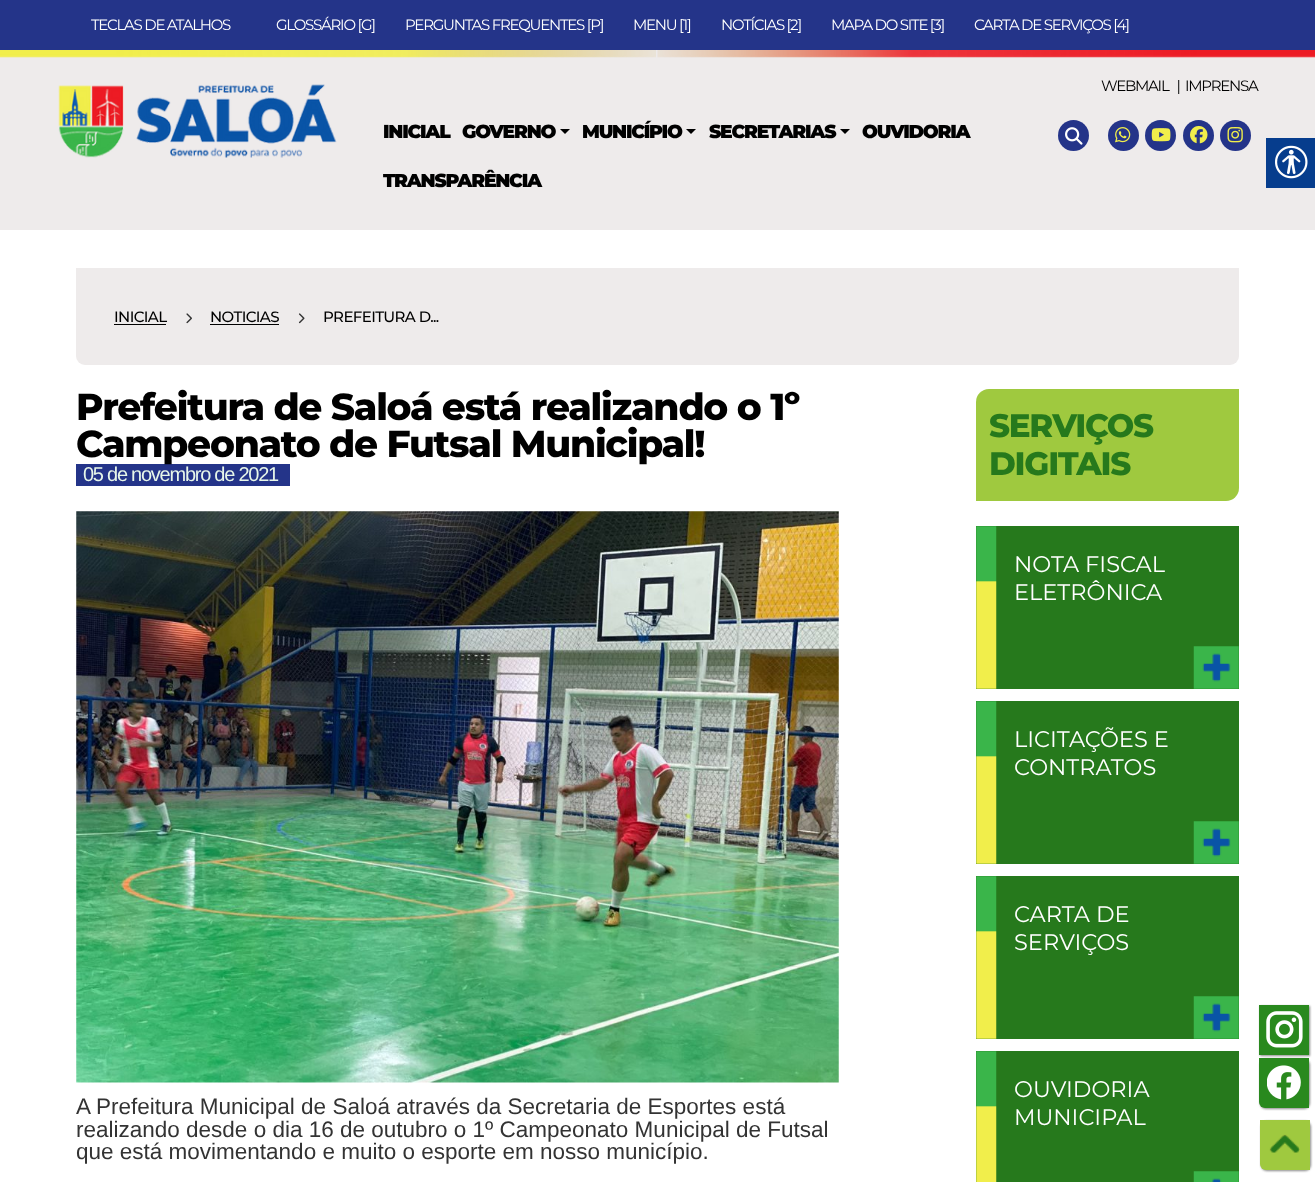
(async () => {
const canvas = document.querySelector("canvas")
canvas.width = 1315
canvas.height = 1182
const c = canvas.getContext("2d")
c.miterLimit = 4
c.fontKerning = "normal"
function T(s,x,y){c.fillText(s,x,y)}
function R(x,y,w,h){c.fillRect(x,y,w,h)}
async function I(src,x,y,w,h){const img=new Image();img.src=src;await img.decode();c.drawImage(img,x,y,w,h)}
let path
c.fillStyle="#fff"
R(0,0,1315,1182)
c.fillStyle="#243489"
R(0,0,1315,50)
c.letterSpacing="-1.25px"
c.font="15px Montserrat"
c.fillStyle="#fff"
T("TECLAS DE ATALHOS",91,30)
T("GLOSSÁRIO [G]",276,30)
T("PERGUNTAS FREQUENTES [P]",405,30)
T("MENU [1]",633,30)
T("NOTÍCIAS [2]",721,30)
T("MAPA DO SITE [3]",831,30)
T("CARTA DE SERVIÇOS [4]",974,30)
c.fillStyle="#eeebeb"
R(0,50,1315,180)
await I("1.png",0,50,656,8)
await I("2.png",657,50,658,8)
await I("3.png",58,84,279,74)
c.font="900 18.75px Montserrat"
c.fillStyle="#000"
T("INICIAL",383,138)
T("GOVERNO",462,138)
path = new Path2D("M560 129h10l-5 5z")
c.fill(path)
T("MUNICÍPIO",582,138)
path = new Path2D("M686 129h10l-5 5z")
c.fill(path)
T("SECRETARIAS",709,138)
path = new Path2D("M840 129h10l-5 5z")
c.fill(path)
T("OUVIDORIA",862,138)
T("TRANSPARÊNCIA",383,187)
c.font="15px Montserrat"
T("WEBMAIL   |",1101,91)
T("IMPRENSA",1185,91)
c.fillStyle="#243489"
c.beginPath()
c.arc(1073.5,135.5,15.5,0,7)
c.fill()
await I("4.png",1065,127,18,18)
c.beginPath()
c.arc(1123.5,135.5,15.5,0,7)
c.fill()
await I("5.png",1115,127,16,16)
c.beginPath()
c.arc(1160.5,135.5,15.5,0,7)
c.fill()
await I("6.png",1151,128,20,14)
c.beginPath()
c.arc(1198.5,135.5,15.5,0,7)
c.fill()
await I("7.png",1190,125,18,19)
c.beginPath()
c.arc(1235.5,135.5,15.5,0,7)
c.fill()
await I("8.png",1227,127,16,16)
c.fillStyle="#063d8d"
R(1266,138,49,50)
await I("9.png",1275,145,33,34)
c.fillStyle="#eeebeb"
c.beginPath()
c.roundRect(76,268,1163,97,[0,0,9,9])
c.fill()
c.letterSpacing="-0.6px"
c.font="500 15px Montserrat"
c.fillStyle="#000"
T("INICIAL",114,322)
R(114,324,52,1)
await I("10.png",186,313,6,11)
T("NOTICIAS",210,322)
R(210,324,69,1)
await I("11.png",298,313,7,11)
T("PREFEITURA D...",323,322)
c.letterSpacing="-1.25px"
c.font="800 37.5px Montserrat"
T("Prefeitura de Saloá está realizando o 1º",76,420)
c.fillStyle="#243489"
R(76,464,214,22)
c.fillStyle="#000"
T("Campeonato de Futsal Municipal!",76,457)
c.font="20px Liberation Sans"
c.fillStyle="#e7f6e9"
T("05 de novembro de 2021",83,481)
await I("12.png",76,511,763,572)
c.letterSpacing="0px"
c.font="22.5px Liberation Sans"
c.fillStyle="#333"
T("A Prefeitura Municipal de Saloá através da Secretaria de Esportes está",76,1114)
T("realizando desde o dia 16 de outubro o 1º Campeonato Municipal de Futsal",76,1137)
T("que está movimentando e muito o esporte em nosso município.",76,1159)
c.fillStyle="#9fc93f"
c.beginPath()
c.roundRect(976,389,263,112,[13,0,13,0])
c.fill()
c.letterSpacing="-1.25px"
c.font="800 32.5px Montserrat"
c.fillStyle="#26791c"
T("SERVIÇOS",989,437)
T("DIGITAIS",989,475)
R(976,526,263,163)
await I("13.png",976,526,21,163)
await I("14.png",1193,646,46,43)
c.letterSpacing="0px"
c.font="22.5px Montserrat"
c.fillStyle="#fff"
T("NOTA FISCAL",1014,572)
T("ELETRÔNICA",1014,600)
c.fillStyle="#26791c"
R(976,701,263,163)
await I("13.png",976,701,21,163)
await I("14.png",1193,821,46,43)
c.fillStyle="#fff"
T("LICITAÇÕES E",1014,747)
T("CONTRATOS",1014,775)
c.fillStyle="#26791c"
R(976,876,263,163)
await I("13.png",976,876,21,163)
await I("14.png",1193,996,46,43)
c.fillStyle="#fff"
T("CARTA DE",1014,922)
T("SERVIÇOS",1014,950)
c.fillStyle="#26791c"
R(976,1051,263,131)
await I("15.png",976,1051,21,131)
await I("16.png",1193,1171,46,11)
c.fillStyle="#fff"
T("OUVIDORIA",1014,1097)
T("MUNICIPAL",1014,1125)
c.fillStyle="#888"
c.filter="blur(1px)"
c.beginPath()
c.rect(1260,1006,50,50)
c.fill()
c.filter="none"
c.fillStyle="#29891e"
R(1259,1005,50,50)
await I("17.png",1266,1011,37,37)
c.fillStyle="#888"
c.filter="blur(1px)"
c.beginPath()
c.roundRect(1260,1059,50,50,6)
c.fill()
c.filter="none"
c.fillStyle="#29891e"
c.beginPath()
c.roundRect(1259,1058,50,50,[0,0,0,6])
c.fill()
await I("18.png",1267,1065,34,35)
c.fillStyle="#888"
c.filter="blur(1px)"
c.beginPath()
c.roundRect(1261,1121,50,50,6)
c.fill()
c.filter="none"
c.fillStyle="#9fc93f"
c.beginPath()
c.roundRect(1260,1120,50,50,[0,0,0,6])
c.fill()
await I("19.png",1269,1134,31,19)
})()
